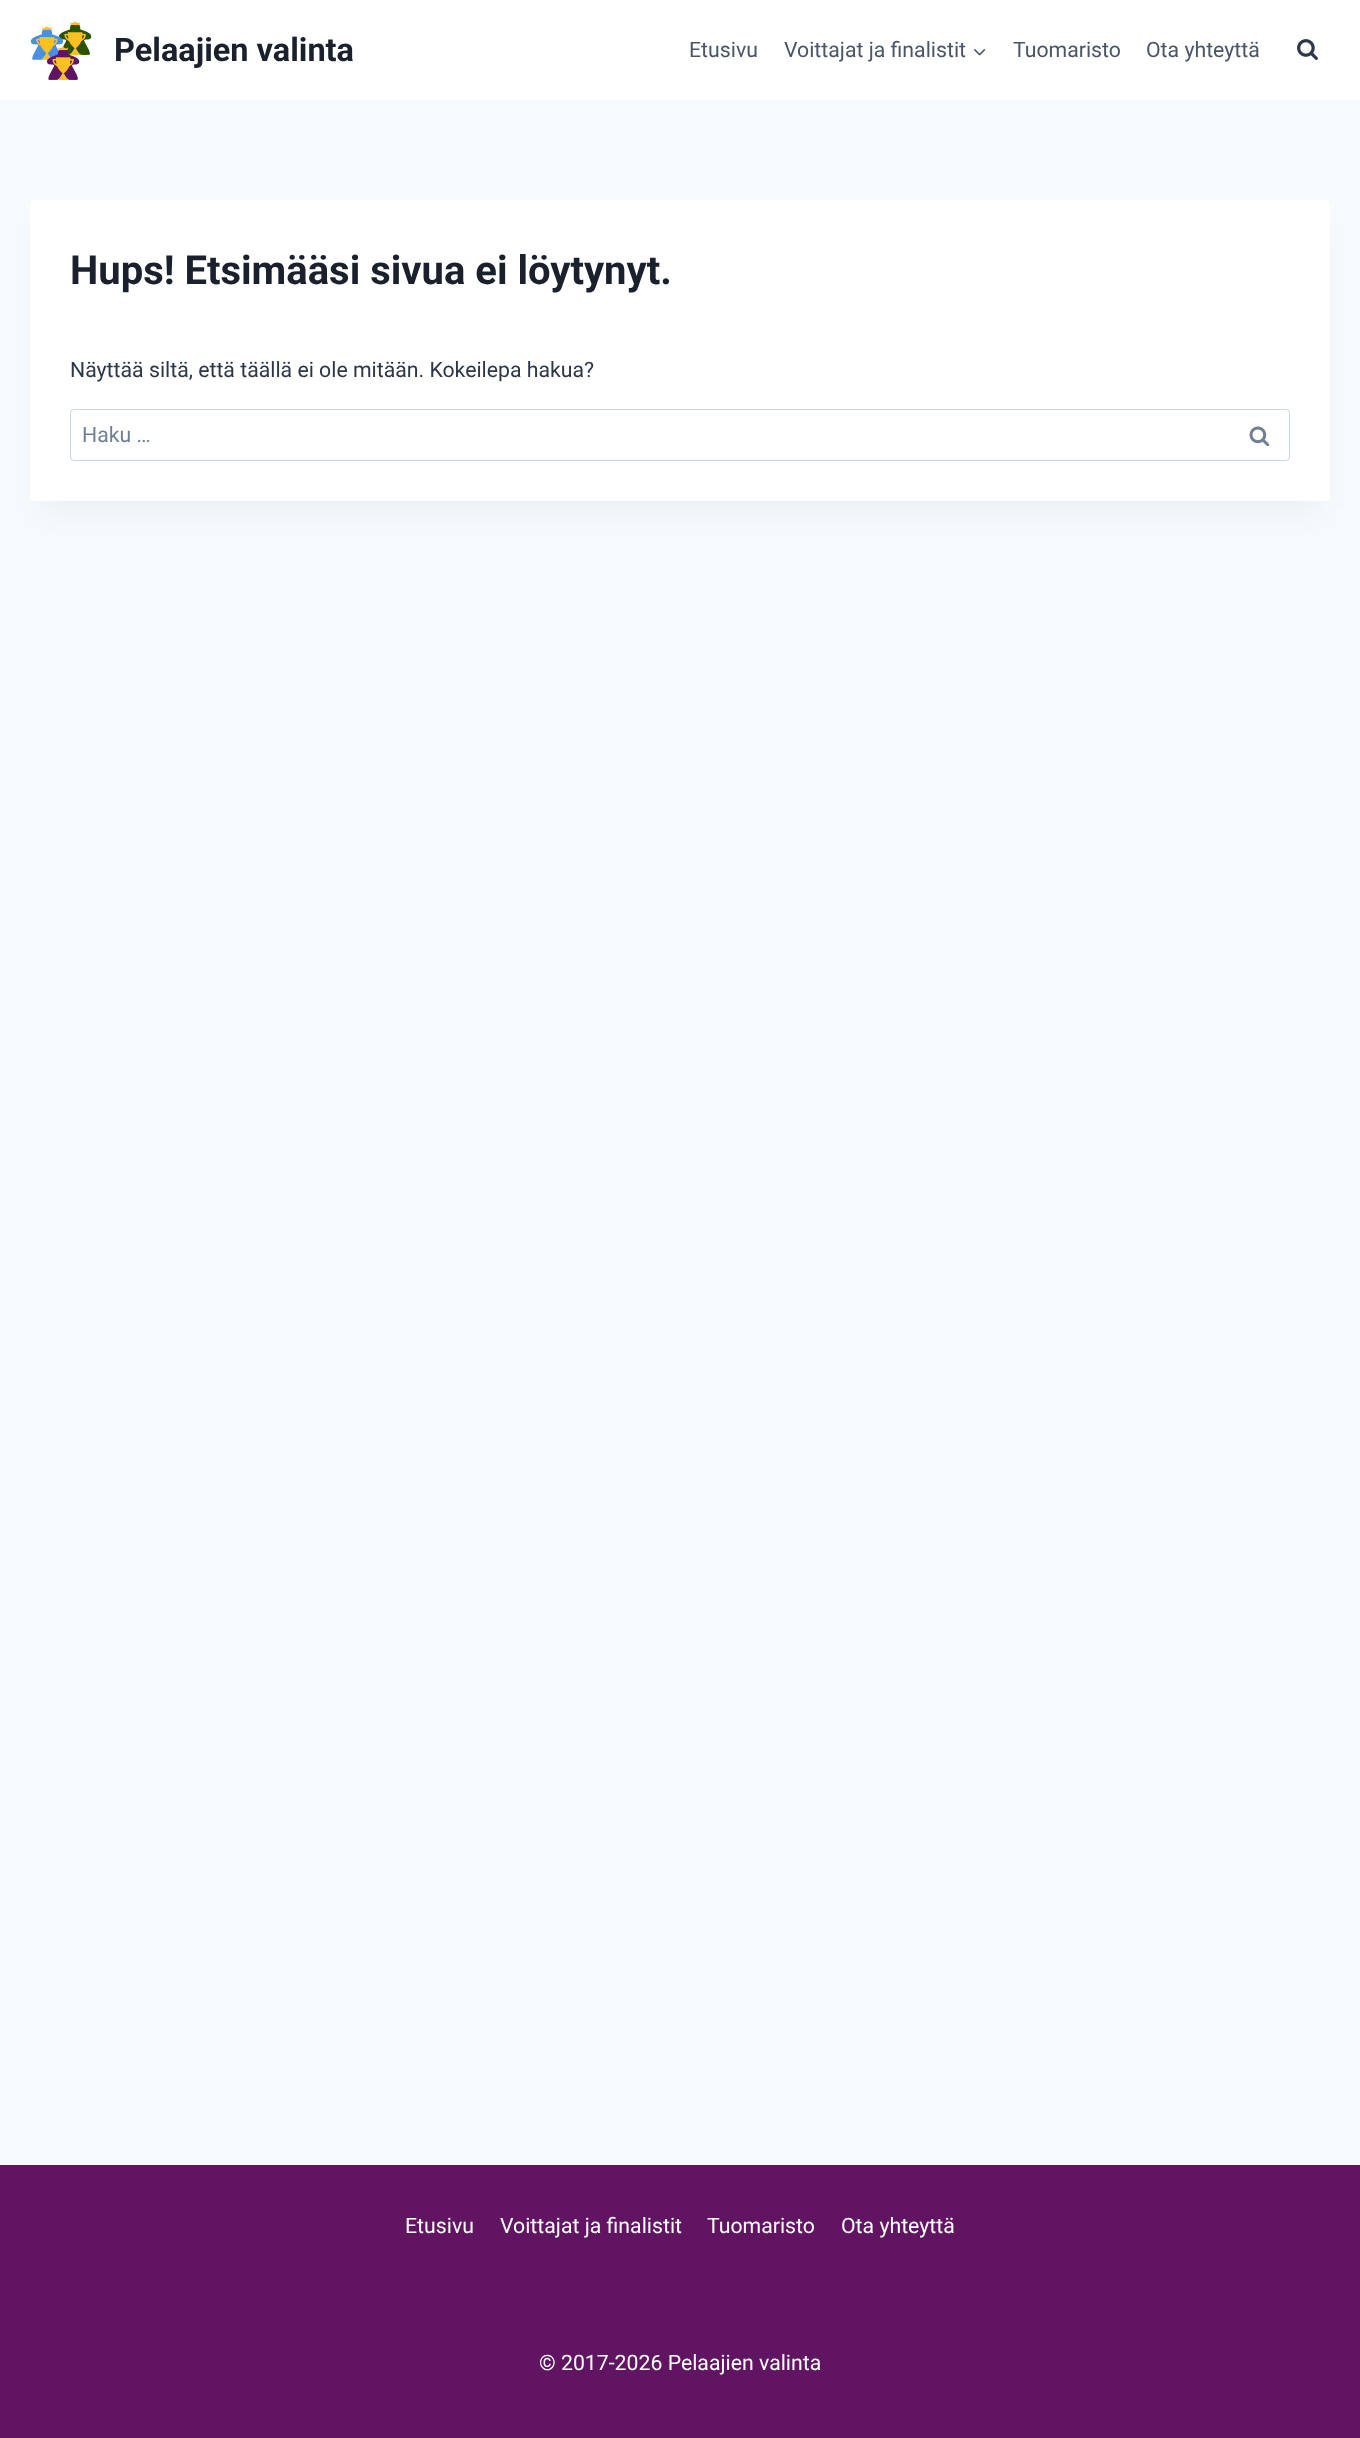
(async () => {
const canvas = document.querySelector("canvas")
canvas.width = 1360
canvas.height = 2438
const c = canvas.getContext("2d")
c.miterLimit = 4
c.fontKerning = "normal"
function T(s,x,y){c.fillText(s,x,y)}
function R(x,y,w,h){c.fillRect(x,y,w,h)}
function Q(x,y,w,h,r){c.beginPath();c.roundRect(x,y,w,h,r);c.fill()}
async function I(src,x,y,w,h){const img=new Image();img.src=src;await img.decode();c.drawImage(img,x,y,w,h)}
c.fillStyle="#f7fafc"
R(0,0,1360,2438)
c.fillStyle="#fff"
R(0,0,1360,100)
await I("1.png",30,21,62,59)
c.font="bold 32.5px Roboto"
c.fillStyle="#1a202c"
T("Pelaajien valinta",114,61)
c.font="21.25px Roboto"
c.fillStyle="#4a5568"
T("Etusivu",689,57)
T("Voittajat ja finalistit",784,57)
await I("2.png",974,49,12,7)
T("Tuomaristo",1013,57)
T("Ota yhteyttä",1146,57)
await I("3.png",1297,39,21,21)
c.fillStyle="#0000000d"
c.filter="blur(15.5px)"
c.beginPath()
c.rect(43,231,1275,277)
c.fill()
c.filter="none"
c.fillStyle="#fff"
Q(30,200,1300,301,5)
c.font="bold 40px Roboto"
c.fillStyle="#1a202c"
T("Hups! Etsimääsi sivua ei löytynyt.",70,284)
c.font="21.25px Roboto"
c.fillStyle="#2d3748"
T("Näyttää siltä, että täällä ei ole mitään. Kokeilepa hakua?",70,377)
c.beginPath()
c.roundRect(70.5,409.5,1219,51,3.5)
c.strokeStyle="#cbd5e0"
c.stroke()
c.fillStyle="#718096"
T("Haku …",82,442)
await I("4.png",1249,426,21,20)
c.fillStyle="#611462"
R(0,2165,1360,273)
c.fillStyle="#fff"
T("Etusivu",405,2233)
T("Voittajat ja finalistit",500,2233)
T("Tuomaristo",707,2233)
T("Ota yhteyttä",841,2233)
T("© 2017-2026 Pelaajien valinta",539,2370)
})()
